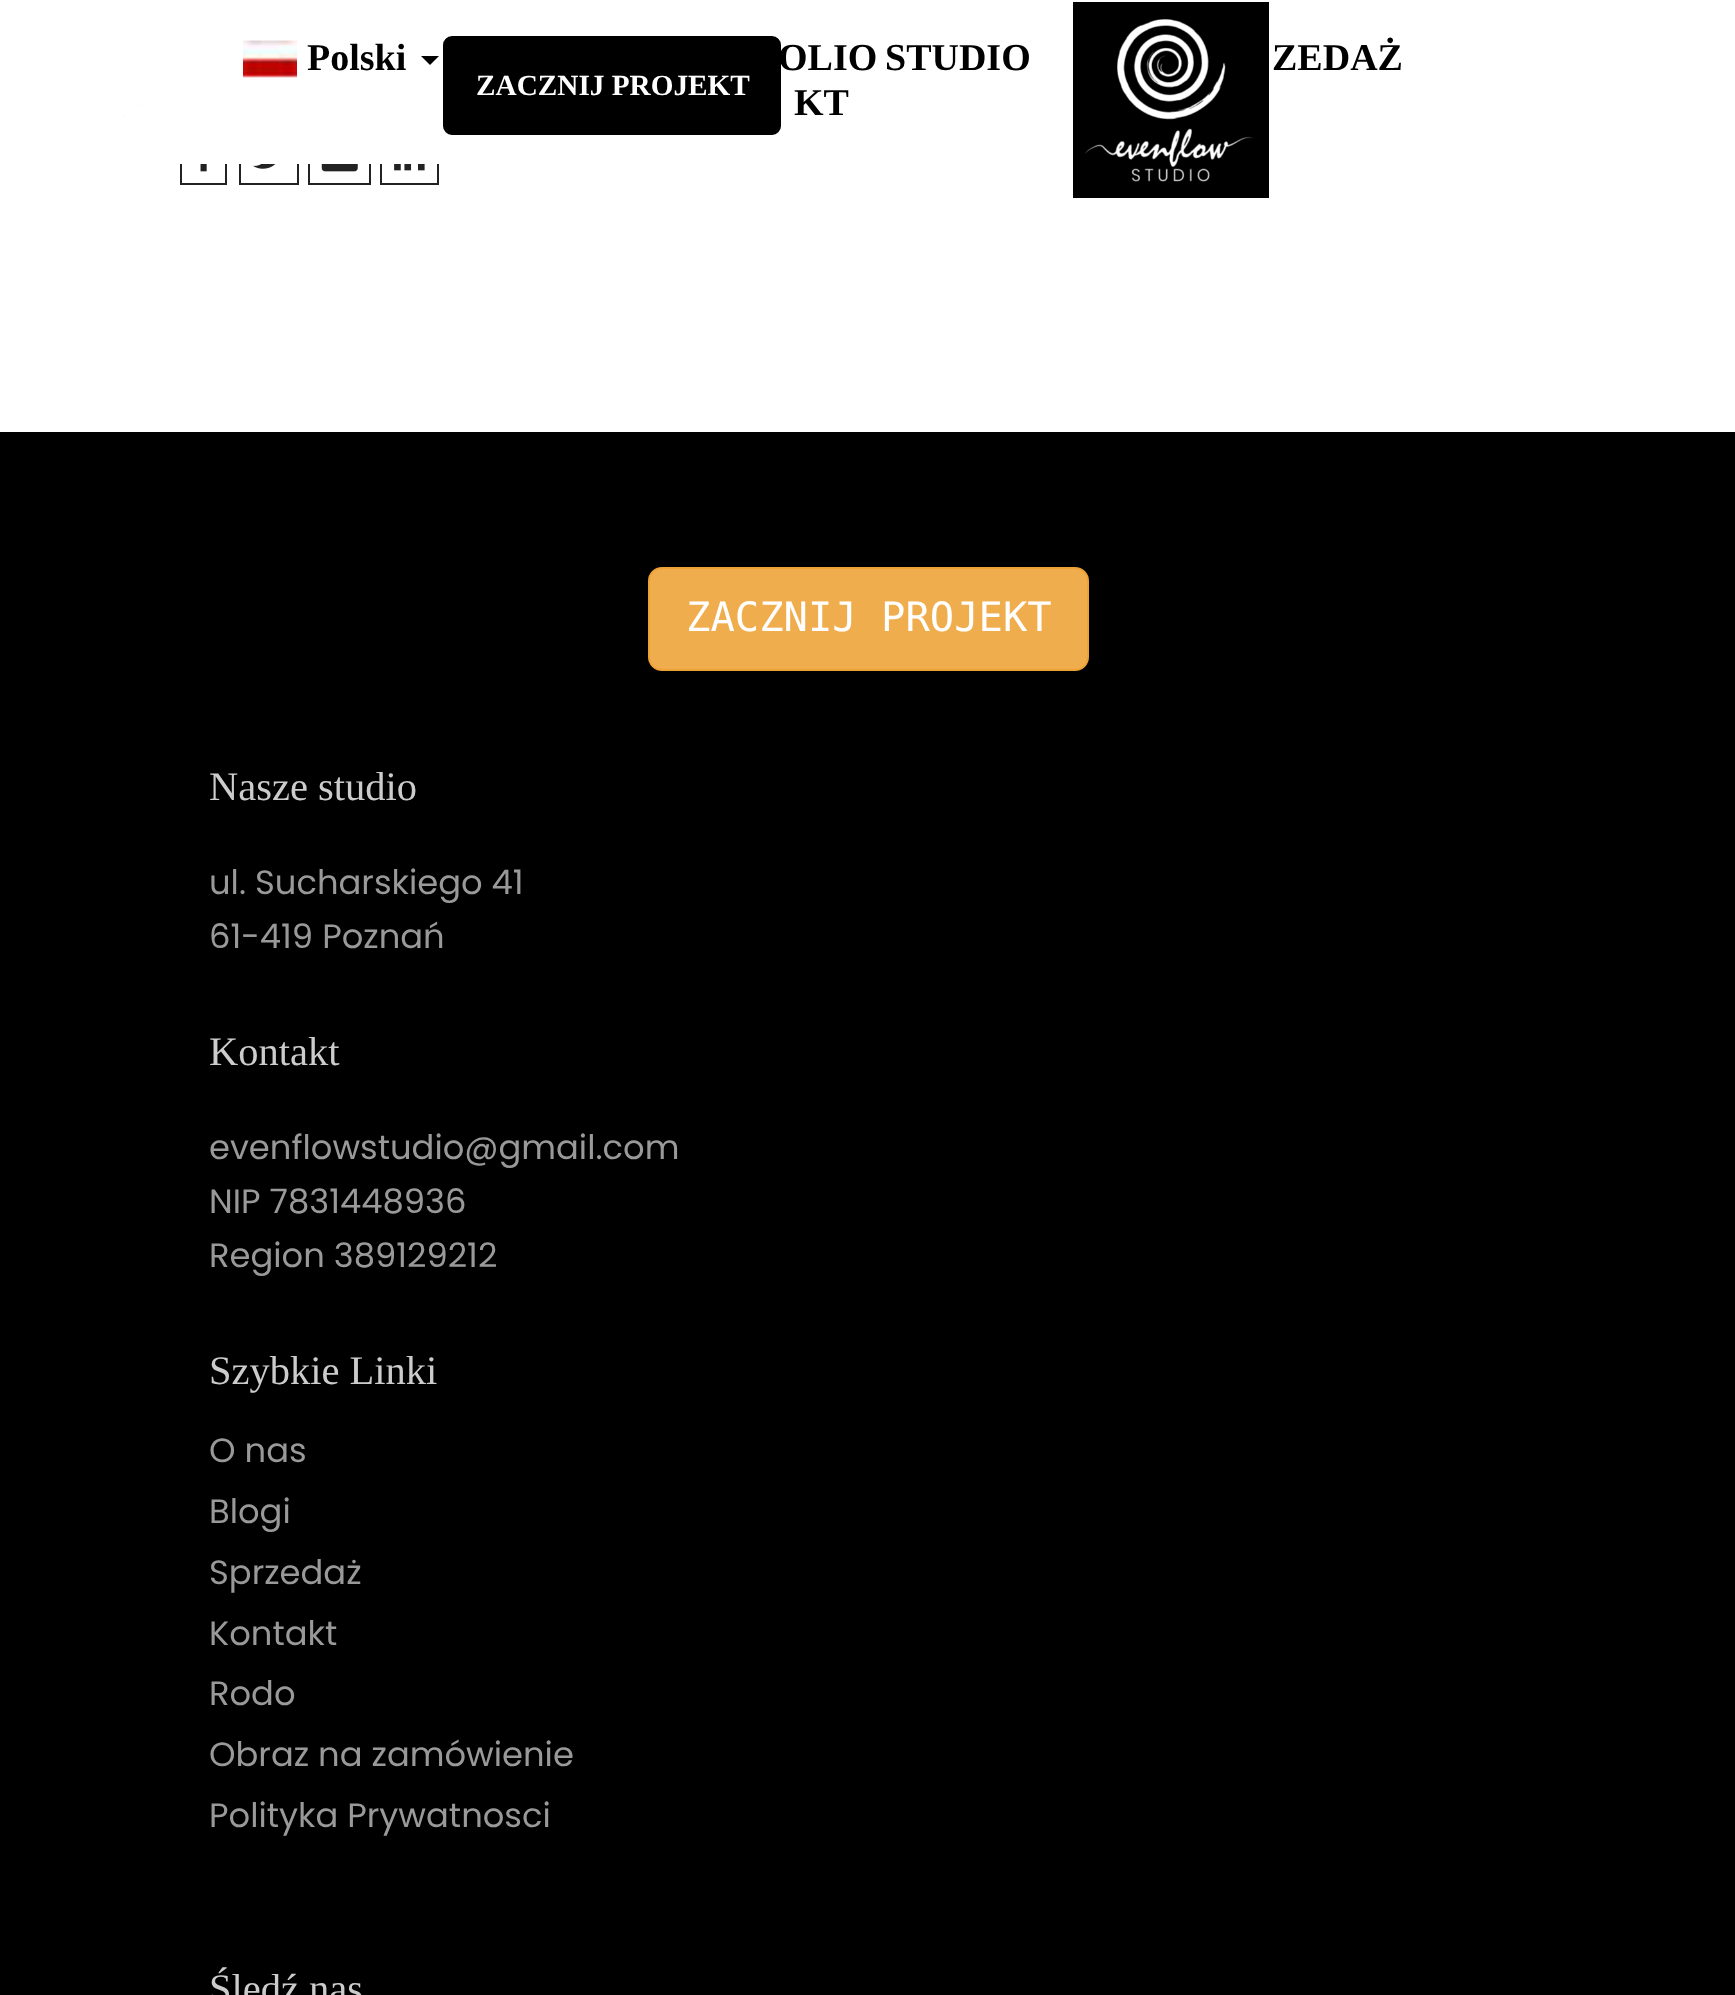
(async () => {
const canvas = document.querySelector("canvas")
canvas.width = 1735
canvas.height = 1995
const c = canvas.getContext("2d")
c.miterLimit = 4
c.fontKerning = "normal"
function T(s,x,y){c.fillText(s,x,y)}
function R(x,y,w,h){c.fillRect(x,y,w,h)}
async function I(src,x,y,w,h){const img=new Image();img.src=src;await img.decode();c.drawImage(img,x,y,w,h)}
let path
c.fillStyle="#fff"
R(0,0,1735,1995)
c.strokeStyle="#222"
c.lineWidth=2
c.strokeRect(181,132,45,52)
c.strokeRect(240,132,58,52)
c.strokeRect(309,132,61,52)
c.strokeRect(381,132,57,52)
R(180,131,259,33)
await I("1.png",72,79,85,89)
await I("2.png",243,40,54,38)
c.font="bold 38px Liberation Serif"
c.fillStyle="#000"
T("Polski",307,70)
path = new Path2D("M421 56h18l-9 9z")
c.fill(path)
c.beginPath()
c.roundRect(445.5,38.5,333,94,6.5)
c.fill()
c.strokeStyle="#000"
c.lineWidth=5
c.stroke()
T("OLIO",778,70)
T("STUDIO",885,70)
R(1073,2,196,196)
await I("3.png",1085,19,168,163)
T("ZEDAŻ",1272,70)
c.font="bold 29.25px Liberation Serif"
c.fillStyle="#fff"
T("ZACZNIJ PROJEKT",476,95)
c.font="bold 38px Liberation Serif"
c.fillStyle="#000"
T("KT",794,115)
await I("4.png",200,164,7,8)
await I("5.png",253,164,23,5)
await I("6.png",321,164,37,8)
await I("7.png",394,164,31,7)
R(0,432,1735,1563)
c.fillStyle="#f0ad4e"
c.beginPath()
c.roundRect(649,568,439,102,13)
c.fill()
c.strokeStyle="#eea236"
c.lineWidth=2
c.stroke()
c.font="40.5px DejaVu Sans Mono"
c.fillStyle="#fff"
T("ZACZNIJ PROJEKT",686,631)
c.font="40.5px Liberation Serif"
c.fillStyle="#ccc"
T("Nasze studio",209,800)
c.font="33.75px Poppins"
c.fillStyle="#999"
T("ul. Sucharskiego 41",209,894)
T("61-419 Poznań",209,948)
c.font="40.5px Liberation Serif"
c.fillStyle="#ccc"
T("Kontakt",209,1065)
c.font="33.75px Poppins"
c.fillStyle="#999"
T("evenflowstudio@gmail.com",209,1159)
T("NIP 7831448936",209,1213)
T("Region 389129212",209,1267)
c.font="40.5px Liberation Serif"
c.fillStyle="#ccc"
T("Szybkie Linki",209,1384)
c.font="33.75px Poppins"
c.fillStyle="#999"
T("O nas",209,1462)
T("Blogi",209,1523)
T("Sprzedaż",209,1584)
T("Kontakt",209,1645)
T("Rodo",209,1705)
T("Obraz na zamówienie",209,1766)
T("Polityka Prywatnosci",209,1827)
c.font="40.5px Liberation Serif"
c.fillStyle="#ccc"
T("Śledź nas",209,2002)
})()
